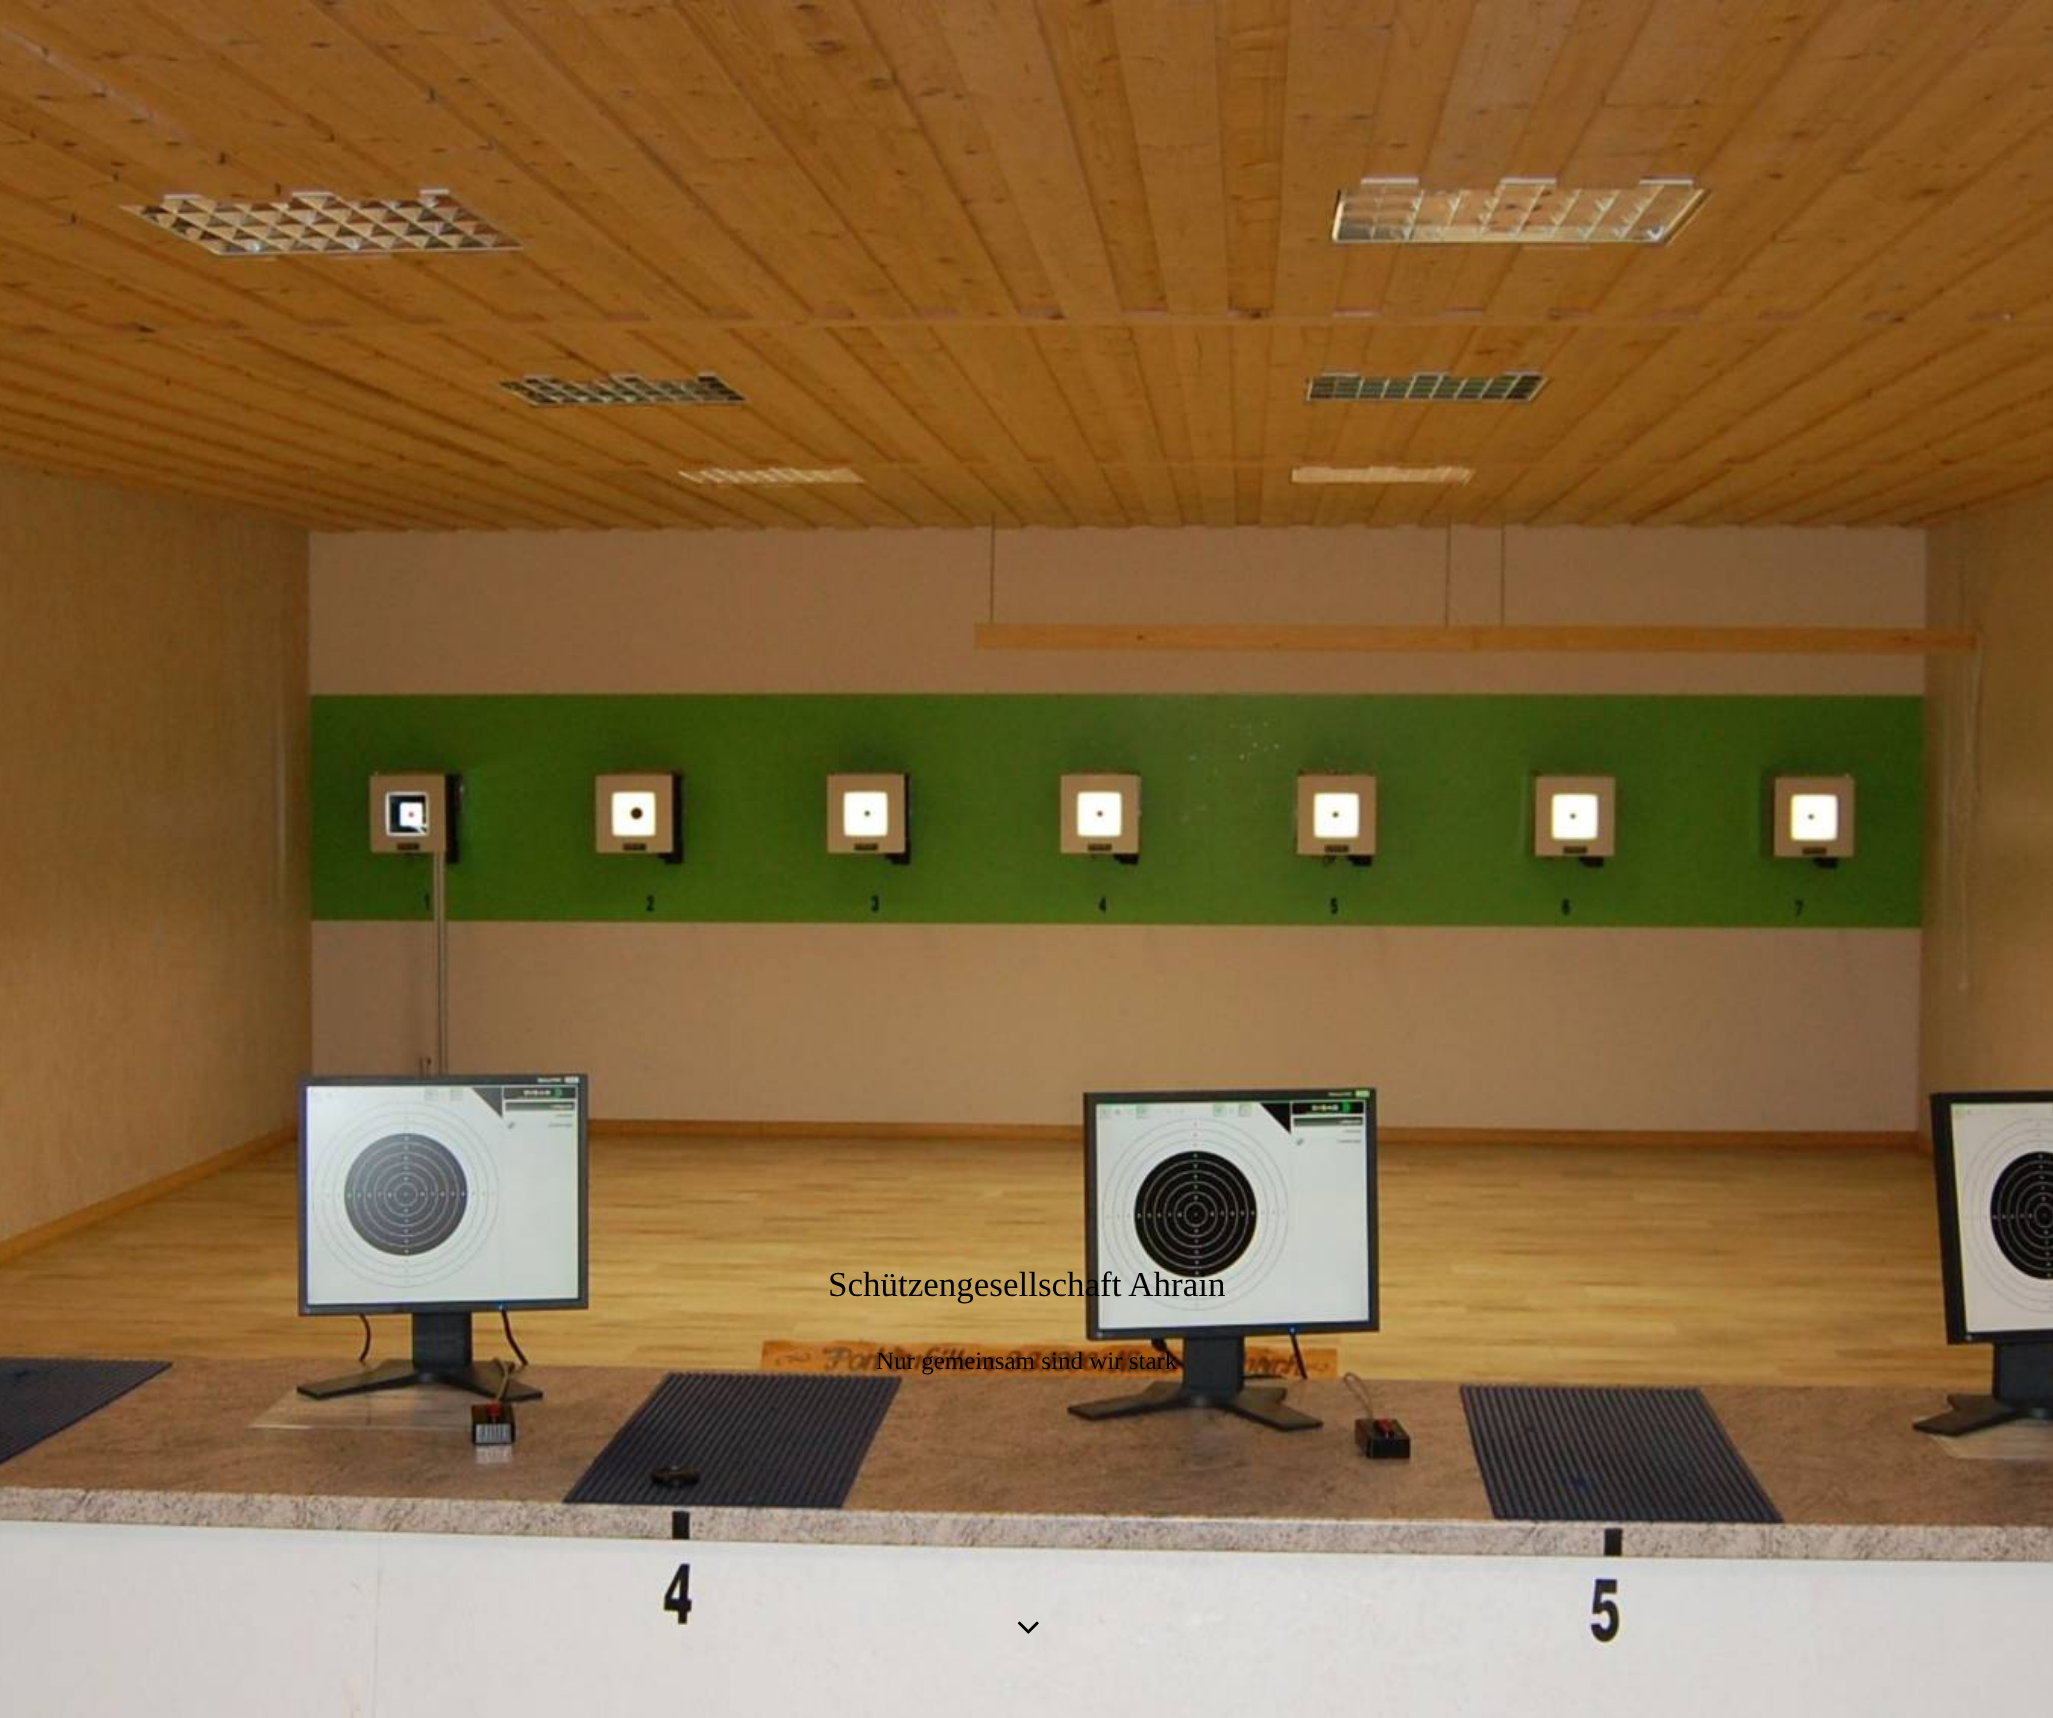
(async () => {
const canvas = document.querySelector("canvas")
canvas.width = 2053
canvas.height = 1718
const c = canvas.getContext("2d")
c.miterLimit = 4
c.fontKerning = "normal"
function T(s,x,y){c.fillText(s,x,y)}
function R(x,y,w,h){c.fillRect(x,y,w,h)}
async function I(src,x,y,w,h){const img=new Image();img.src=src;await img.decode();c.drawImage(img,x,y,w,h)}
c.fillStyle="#fff"
R(0,0,2053,1718)
await I("1.png",0,0,2053,1718)
c.font="35px Liberation Serif"
c.fillStyle="#000"
T("Schützengesellschaft Ahrain",828,1296)
c.font="25px Liberation Serif"
T("Nur gemeinsam sind wir stark",876,1369)
await I("2.png",1017,1621,22,13)
})()
